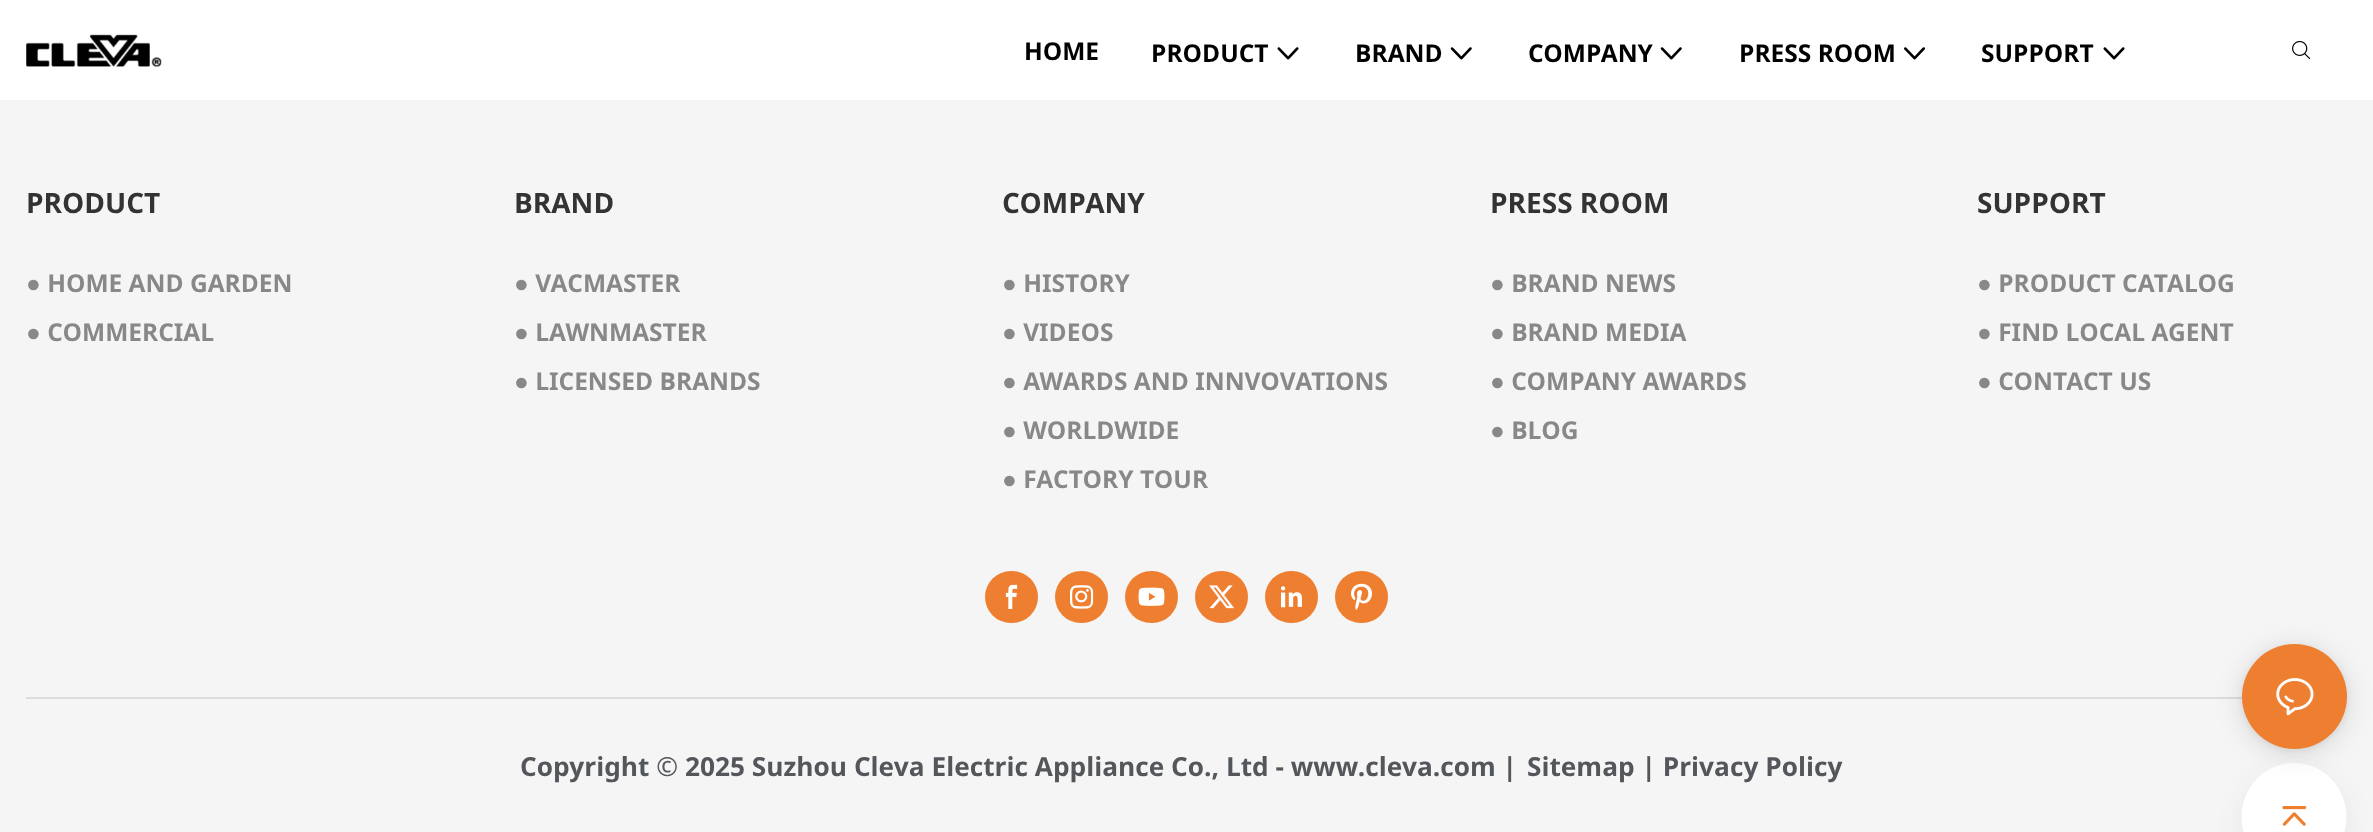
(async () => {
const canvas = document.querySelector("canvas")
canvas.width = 2373
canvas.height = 832
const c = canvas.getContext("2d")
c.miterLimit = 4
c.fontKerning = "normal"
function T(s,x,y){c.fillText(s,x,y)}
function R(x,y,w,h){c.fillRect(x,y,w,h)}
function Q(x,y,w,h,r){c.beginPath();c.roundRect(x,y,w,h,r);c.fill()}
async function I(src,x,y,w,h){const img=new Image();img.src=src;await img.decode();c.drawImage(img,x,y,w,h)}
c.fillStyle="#f5f5f5"
R(0,0,2373,832)
c.fillStyle="#fff"
R(0,0,2373,100)
await I("1.png",26,34,136,33)
c.font="bold 24.5px Noto Sans"
c.fillStyle="#000"
T("HOME",1024,60)
T("PRODUCT",1151,62)
await I("2.png",1277,47,22,13)
T("BRAND",1355,62)
await I("3.png",1450,47,22,13)
T("COMPANY",1528,62)
await I("3.png",1660,47,22,13)
T("PRESS ROOM",1739,62)
await I("4.png",1904,47,21,13)
T("SUPPORT",1981,62)
await I("2.png",2103,47,22,13)
await I("5.png",2292,40,19,20)
c.font="bold 28px Noto Sans"
c.fillStyle="#333"
T("PRODUCT",26,213)
c.font="bold 24.5px Noto Sans"
c.fillStyle="#888"
T("● HOME AND GARDEN",26,292)
T("● COMMERCIAL",26,341)
c.font="bold 28px Noto Sans"
c.fillStyle="#333"
T("BRAND",514,213)
c.font="bold 24.5px Noto Sans"
c.fillStyle="#888"
T("● VACMASTER",514,292)
T("● LAWNMASTER",514,341)
T("● LICENSED BRANDS",514,390)
c.font="bold 28px Noto Sans"
c.fillStyle="#333"
T("COMPANY",1002,213)
c.font="bold 24.5px Noto Sans"
c.fillStyle="#888"
T("● HISTORY",1002,292)
T("● VIDEOS",1002,341)
T("● AWARDS AND INNVOVATIONS",1002,390)
T("● WORLDWIDE",1002,439)
T("● FACTORY TOUR",1002,488)
c.font="bold 28px Noto Sans"
c.fillStyle="#333"
T("PRESS ROOM",1490,213)
c.font="bold 24.5px Noto Sans"
c.fillStyle="#888"
T("● BRAND NEWS",1490,292)
T("● BRAND MEDIA",1490,341)
T("● COMPANY AWARDS",1490,390)
T("● BLOG",1490,439)
c.font="bold 28px Noto Sans"
c.fillStyle="#333"
T("SUPPORT",1977,213)
c.font="bold 24.5px Noto Sans"
c.fillStyle="#888"
T("● PRODUCT CATALOG",1977,292)
T("● FIND LOCAL AGENT",1977,341)
T("● CONTACT US",1977,390)
c.fillStyle="#ee7f30"
Q(985,571,53,52,26)
await I("6.png",1005,584,13,25)
Q(1055,571,53,52,26)
await I("7.png",1069,585,25,24)
Q(1125,571,53,52,26)
await I("8.png",1138,587,27,19)
Q(1195,571,53,52,26)
await I("9.png",1209,585,25,24)
Q(1265,571,53,52,26)
await I("10.png",1281,586,21,22)
Q(1335,571,53,52,26)
await I("11.png",1351,583,21,27)
c.fillStyle="#ddd"
R(26,697,2321,2)
c.font="bold 26.25px Noto Sans"
c.fillStyle="#53565a"
T("Copyright © 2025 Suzhou Cleva Electric Appliance Co., Ltd - www.cleva.com |",520,776)
T("Sitemap | Privacy Policy",1527,776)
c.fillStyle="#282f3614"
c.filter="blur(13px)"
c.beginPath()
c.roundRect(2242,772,105,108,52.5)
c.fill()
c.filter="none"
c.fillStyle="#fff"
c.beginPath()
c.ellipse(2294,817,52.5,54,0,0,7)
c.fill()
c.fillStyle="#0000001f"
c.filter="blur(14px)"
c.beginPath()
c.roundRect(2242,648,105,105,52.5)
c.fill()
c.filter="none"
c.fillStyle="#0000000f"
c.filter="blur(3.5px)"
c.beginPath()
c.roundRect(2242,646,105,105,52.5)
c.fill()
c.filter="none"
c.fillStyle="#ee7f30"
c.beginPath()
c.arc(2294.5,696.5,52.5,0,7)
c.fill()
await I("12.png",2276,678,38,38)
await I("13.png",2282,806,25,20)
})()
